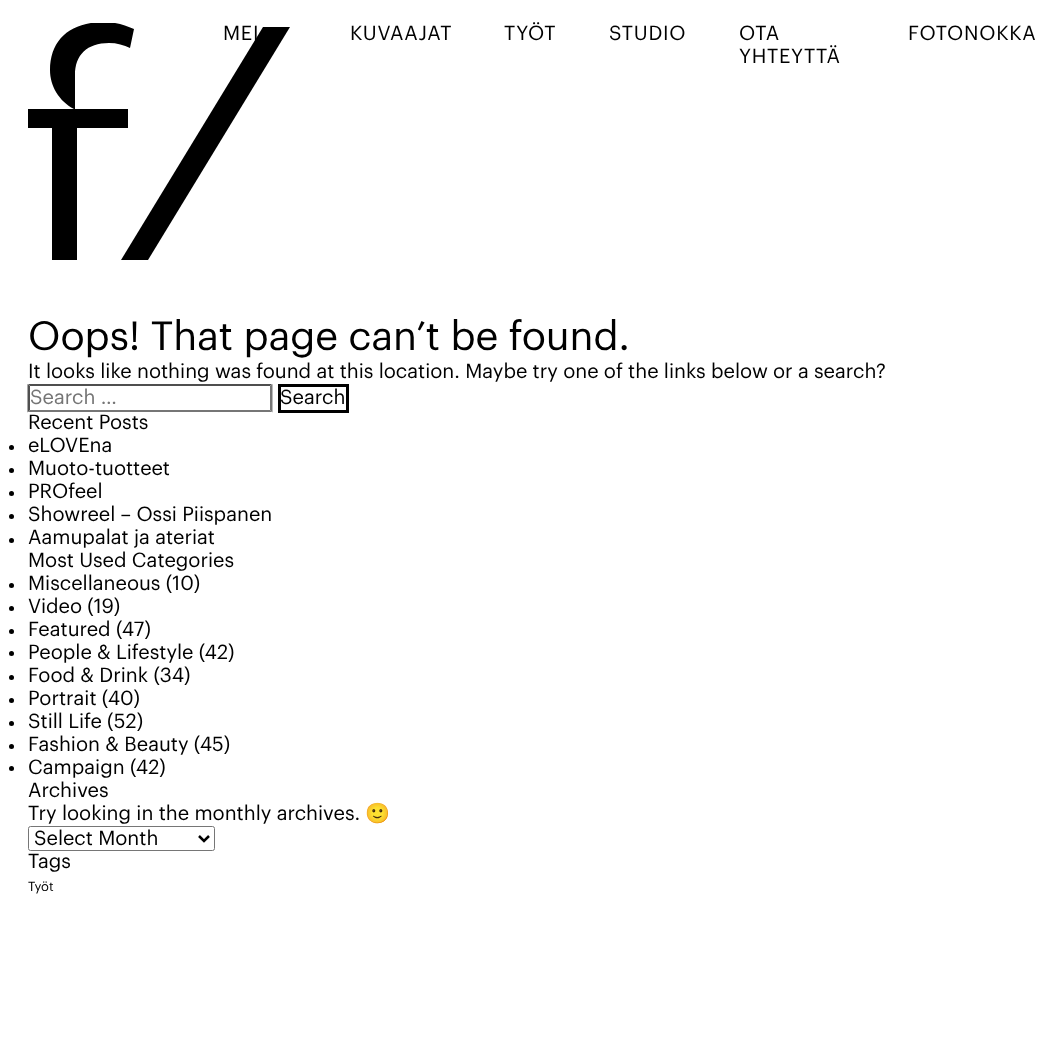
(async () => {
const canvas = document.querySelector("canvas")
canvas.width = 1063
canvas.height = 1043
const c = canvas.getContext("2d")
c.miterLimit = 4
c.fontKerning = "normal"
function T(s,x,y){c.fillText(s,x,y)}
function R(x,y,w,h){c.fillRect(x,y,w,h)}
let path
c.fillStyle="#fff"
R(0,0,1063,1043)
c.fillStyle="#000"
path = new Path2D("M290 27h-27l-142 233h27z")
c.fill(path)
c.save()
c.beginPath()
c.rect(28,23,262,237)
c.clip()
path = new Path2D("M75 75v34h53v19h-51v132h-25v-132h-24v-19h46c-15-8-24-23-24-39c0-30 20-48 54-48c11 0 21 3 30 7l-4 19c-6-3-13-5-21-5c-22 0-34 12-34 32")
c.fill(path)
c.restore()
c.letterSpacing="0.75px"
c.font="20px Graphik"
T("MEI",223,40)
T("KUVAAJAT",350,40)
T("TYÖT",504,40)
T("STUDIO",609,40)
T("OTA",739,40)
T("YHTEYTTÄ",739,63)
T("FOTONOKKA",908,40)
c.letterSpacing="0px"
c.font="40px Graphik"
T("Oops! That page can’t be found.",28,350)
c.font="20px Graphik"
T("It looks like nothing was found at this location. Maybe try one of the links below or a search?",28,378)
c.fillStyle="#4f4f4f"
path = new Path2D("M28 384h244l-2 2h-240z")
c.fill(path)
c.fillStyle="#767676"
path = new Path2D("M272.5 384v28.5l-2.5-2.5v-24z")
c.fill(path)
path = new Path2D("M272 412h-244l2-2h240z")
c.fill(path)
c.fillStyle="#4f4f4f"
path = new Path2D("M27.5 412.5v-28.5l2.5 2v24z")
c.fill(path)
c.fillStyle="#757575"
T("Search …",30,404)
c.strokeStyle="#000"
c.lineWidth=3
c.strokeRect(279.5,385.5,68,26)
c.fillStyle="#000"
T("Search",280,404)
T("Recent Posts",28,429)
c.beginPath()
c.arc(11.5,447.5,2.5,0,7)
c.fill()
T("eLOVEna",28,452)
c.beginPath()
c.arc(11.5,470.5,2.5,0,7)
c.fill()
T("Muoto-tuotteet",28,475)
c.beginPath()
c.arc(11.5,493.5,2.5,0,7)
c.fill()
T("PROfeel",28,498)
c.beginPath()
c.arc(11.5,516.5,2.5,0,7)
c.fill()
T("Showreel – Ossi Piispanen",28,521)
c.beginPath()
c.arc(11.5,540.5,2.5,0,7)
c.fill()
T("Aamupalat ja ateriat",28,544)
T("Most Used Categories",28,567)
c.beginPath()
c.arc(11.5,585.5,2.5,0,7)
c.fill()
T("Miscellaneous (10)",28,590)
c.beginPath()
c.arc(11.5,608.5,2.5,0,7)
c.fill()
T("Video (19)",28,613)
c.beginPath()
c.arc(11.5,631.5,2.5,0,7)
c.fill()
T("Featured (47)",28,636)
c.beginPath()
c.arc(11.5,653.5,2.5,0,7)
c.fill()
T("People & Lifestyle (42)",28,659)
c.beginPath()
c.arc(11.5,677.5,2.5,0,7)
c.fill()
T("Food & Drink (34)",28,682)
c.beginPath()
c.arc(11.5,700.5,2.5,0,7)
c.fill()
T("Portrait (40)",28,705)
c.beginPath()
c.arc(11.5,723.5,2.5,0,7)
c.fill()
T("Still Life (52)",28,728)
c.beginPath()
c.arc(11.5,746.5,2.5,0,7)
c.fill()
T("Fashion & Beauty (45)",28,751)
c.beginPath()
c.arc(11.5,768.5,2.5,0,7)
c.fill()
T("Campaign (42)",28,774)
T("Archives",28,797)
T("Try looking in the monthly archives.",28,820)
c.font="20px Noto Color Emoji"
T("🙂",365,820)
c.beginPath()
c.roundRect(28.5,826.5,186,24,2)
c.strokeStyle="#767676"
c.lineWidth=1
c.stroke()
path = new Path2D("M199 836l5 5l5-5")
c.strokeStyle="#000"
c.lineWidth=2.5
c.stroke(path)
c.font="20px Graphik"
T("Select Month",34,845)
T("Tags",28,868)
c.font="13px Graphik"
T("Työt",28,891)
})()
